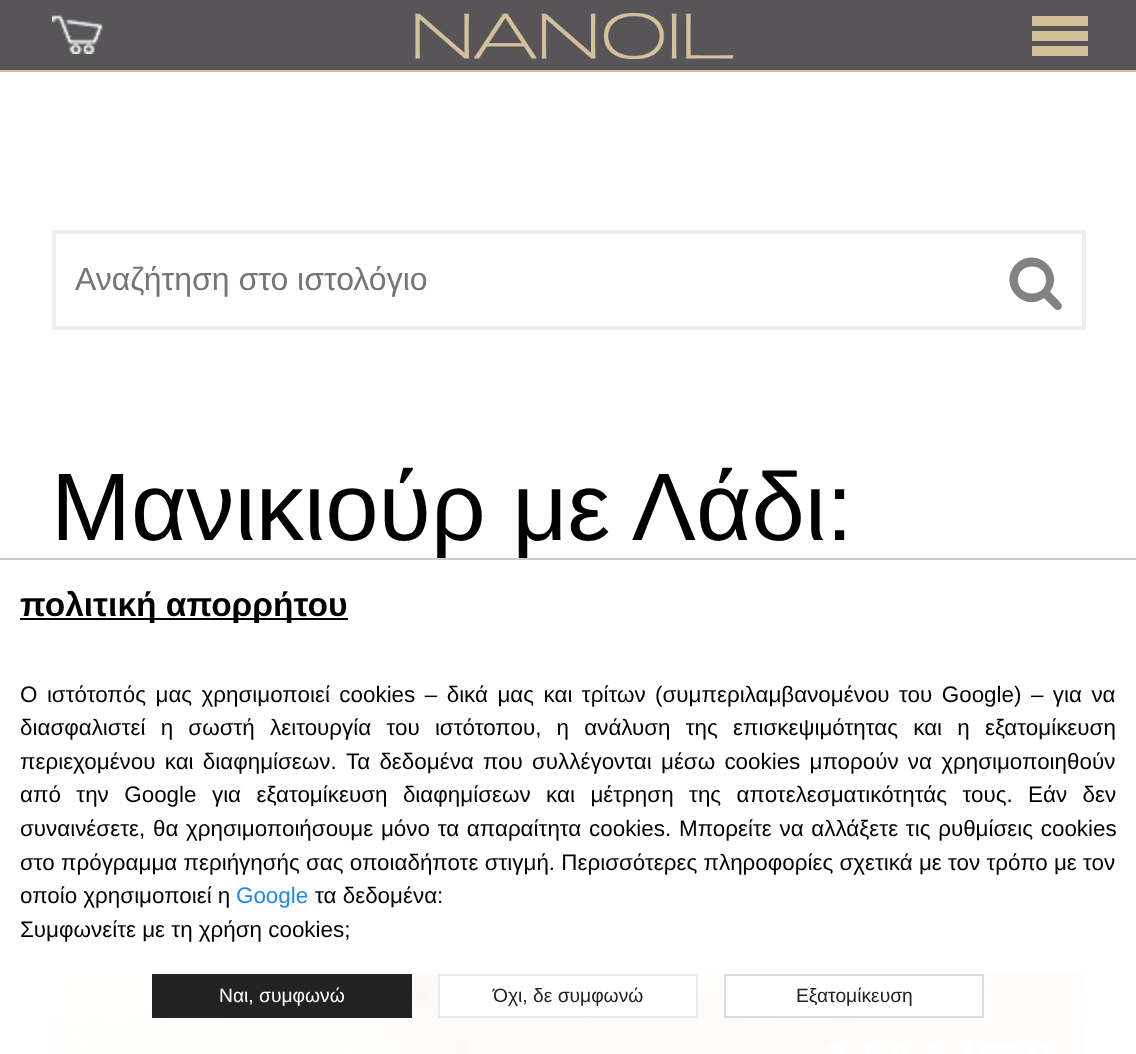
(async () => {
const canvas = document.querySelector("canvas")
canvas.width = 1136
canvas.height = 1054
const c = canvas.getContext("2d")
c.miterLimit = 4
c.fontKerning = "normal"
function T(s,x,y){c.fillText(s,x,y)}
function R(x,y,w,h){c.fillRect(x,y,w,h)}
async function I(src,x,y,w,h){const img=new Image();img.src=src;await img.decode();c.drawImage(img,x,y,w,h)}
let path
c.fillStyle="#fff"
R(0,0,1136,1054)
c.fillStyle="#585559"
R(0,0,1136,70)
c.fillStyle="#d4c09b"
R(0,70,1136,2)
await I("1.png",52,15,51,39)
await I("2.png",414,13,320,47)
R(1032,16,56,10)
R(1032,31,56,10)
R(1032,46,56,10)
c.strokeStyle="#eee"
c.lineWidth=4
c.strokeRect(54,232,1030,96)
c.font="32px Liberation Sans"
c.fillStyle="#757575"
T("Αναζήτηση στο ιστολόγιο",75,290)
c.fillStyle="#828282"
path = new Path2D("M1046 280c0 18-28 18-28 0c0-18 28-18 28 0zm16 26c0-3-9-11-12-14c15-21-14-47-34-28c-19 20 7 49 28 34l11 11c1 1 2 1 3 1c2 0 4-2 4-4z")
c.fill(path)
c.font="96px Liberation Sans"
c.fillStyle="#000"
T("Μανικιούρ με Λάδι:",51,540)
c.fillStyle="#d4c09b"
R(52,898,300,6)
await I("3.png",52,974,1032,80)
c.fillStyle="#fffffff5"
R(52,898,1032,156)
c.fillStyle="#ccc"
R(0,558,1136,2)
c.fillStyle="#000"
R(20,618,328,2)
c.font="bold 33.5px Liberation Sans"
T("πολιτική απορρήτου",20,616)
c.wordSpacing="3.25px"
c.font="22.4px Liberation Sans"
T("Ο ιστότοπός μας χρησιμοποιεί cookies – δικά μας και τρίτων (συμπεριλαμβανομένου του Google) – για να",20,702)
c.wordSpacing="9px"
T("διασφαλιστεί η σωστή λειτουργία του ιστότοπου, η ανάλυση της επισκεψιμότητας και η εξατομίκευση",20,735)
c.wordSpacing="3px"
T("περιεχομένου και διαφημίσεων.",20,769)
T("Τα δεδομένα που συλλέγονται μέσω cookies μπορούν να χρησιμοποιηθούν",346,769)
c.wordSpacing="9.25px"
T("από την Google για εξατομίκευση διαφημίσεων και μέτρηση της αποτελεσματικότητάς τους.",20,802)
T("Εάν δεν",1028,802)
c.wordSpacing="1.5px"
T("συναινέσετε, θα χρησιμοποιήσουμε μόνο τα απαραίτητα cookies.",20,836)
T("Μπορείτε να αλλάξετε τις ρυθμίσεις cookies",679,836)
c.wordSpacing="0px"
T("στο πρόγραμμα περιήγησής σας οποιαδήποτε στιγμή. Περισσότερες πληροφορίες σχετικά με τον τρόπο με τον",20,870)
T("οποίο χρησιμοποιεί η",20,903)
c.fillStyle="#1e87f0"
T("Google",236,903)
c.fillStyle="#000"
T("τα δεδομένα:",315,903)
T("Συμφωνείτε με τη χρήση cookies;",20,937)
c.fillStyle="#222"
R(152,974,260,44)
c.font="19.25px Liberation Sans"
c.fillStyle="#fff"
T("Ναι, συμφωνώ",219,1002)
c.beginPath()
c.rect(439,975,258,42)
c.fill()
c.strokeStyle="#ebebeb"
c.lineWidth=2
c.stroke()
c.fillStyle="#222"
T("Όχι, δε συμφωνώ",493,1002)
c.fillStyle="#fff"
c.beginPath()
c.rect(725,975,258,42)
c.fill()
c.strokeStyle="#ddd"
c.stroke()
c.fillStyle="#222"
T("Εξατομίκευση",796,1002)
})()
